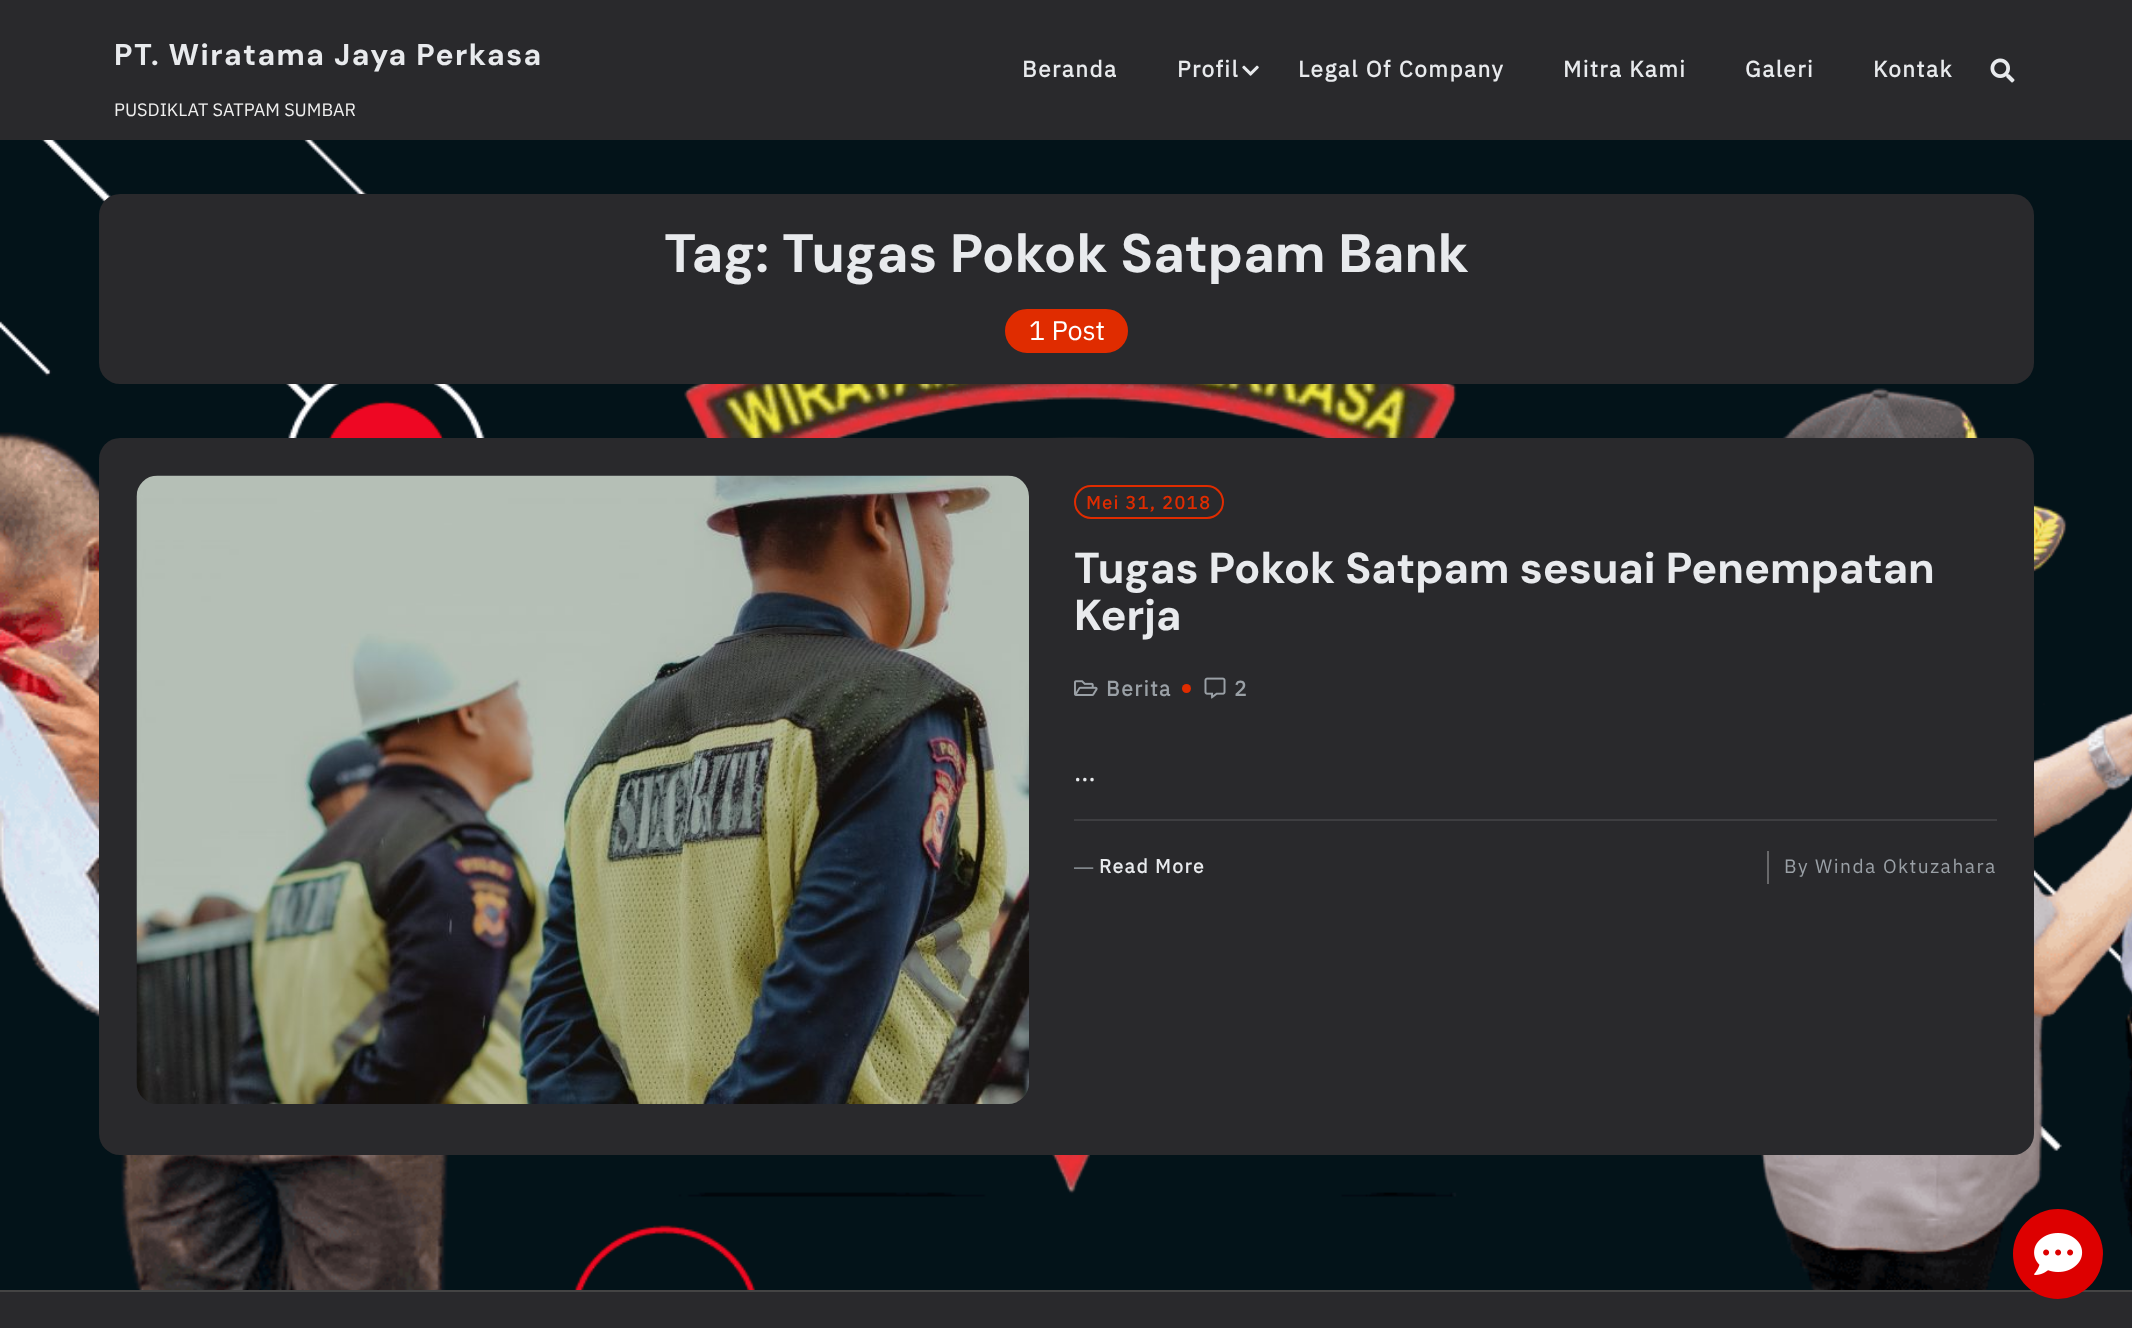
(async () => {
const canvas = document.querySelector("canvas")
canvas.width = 2132
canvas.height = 1328
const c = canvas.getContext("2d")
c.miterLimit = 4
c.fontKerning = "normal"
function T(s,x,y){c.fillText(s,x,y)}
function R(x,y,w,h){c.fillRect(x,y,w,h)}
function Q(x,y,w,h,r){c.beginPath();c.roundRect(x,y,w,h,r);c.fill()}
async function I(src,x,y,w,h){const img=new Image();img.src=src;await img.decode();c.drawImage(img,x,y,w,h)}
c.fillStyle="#fff"
R(0,0,2132,1328)
await I("1.png",0,140,2132,1150)
c.fillStyle="#29292c"
R(0,0,2132,140)
c.letterSpacing="1.5px"
c.font="bold 30px DM Sans"
c.fillStyle="#e8eaed"
T("PT. Wiratama Jaya Perkasa",114,65)
c.letterSpacing="0px"
c.font="18px IBM Plex Sans"
c.fillStyle="#efefef"
T("PUSDIKLAT SATPAM SUMBAR",114,116)
c.letterSpacing="1.5px"
c.font="bold 22.5px IBM Plex Sans"
c.fillStyle="#e8eaed"
T("Beranda",1022,77)
T("Profil",1177,77)
await I("2.png",1242,65,17,11)
T("Legal Of Company",1298,77)
T("Mitra Kami",1563,77)
T("Galeri",1745,77)
T("Kontak",1873,77)
await I("3.png",1990,58,25,25)
c.fillStyle="#29292c"
Q(99,194,1935,190,21)
c.letterSpacing="0px"
c.font="bold 54px DM Sans"
c.fillStyle="#e8eaed"
T("Tag: Tugas Pokok Satpam Bank",664,272)
c.fillStyle="#e02c00"
c.beginPath()
c.roundRect(1006,310,121,42,21)
c.fill()
c.strokeStyle="#e02c00"
c.lineWidth=2
c.stroke()
c.font="27px IBM Plex Sans"
c.fillStyle="#fff"
T("1 Post",1029,340)
c.fillStyle="#29292c"
Q(99,438,1935,717,21)
await I("4.png",136,475,893,629)
c.beginPath()
c.roundRect(1075,486,148,32,16)
c.stroke()
c.letterSpacing="1.5px"
c.font="bold 18px IBM Plex Sans"
c.fillStyle="#e02c00"
T("Mei 31, 2018",1086,509)
c.letterSpacing="0px"
c.font="bold 43.25px DM Sans"
c.fillStyle="#e8eaed"
T("Tugas Pokok Satpam sesuai Penempatan",1074,583)
T("Kerja",1074,630)
await I("5.png",1074,680,24,16)
c.letterSpacing="1.5px"
c.font="bold 21px IBM Plex Sans"
c.fillStyle="#9aa0a6"
T("Berita",1106,696)
c.fillStyle="#e02c00"
c.beginPath()
c.arc(1186.5,688.5,4.5,0,7)
c.fill()
await I("6.png",1204,677,22,22)
c.fillStyle="#9aa0a6"
T("2",1234,696)
c.letterSpacing="0px"
c.font="27px IBM Plex Sans"
c.fillStyle="#e8eaed"
T("…",1074,781)
c.fillStyle="#3e3e41"
R(1074,819,923,2)
c.letterSpacing="1.5px"
c.font="19.25px Liberation Sans"
c.fillStyle="#9aa0a6"
T("―",1074,873)
c.font="bold 19.25px IBM Plex Sans"
c.fillStyle="#e8eaed"
T("Read More",1099,873)
c.fillStyle="#68686a"
R(1767,851,2,33)
c.font="19.25px IBM Plex Sans"
c.fillStyle="#9aa0a6"
T("By Winda Oktuzahara",1784,873)
c.fillStyle="#29292c"
R(0,1292,2132,36)
c.fillStyle="#444"
R(0,1290,2132,2)
c.fillStyle="#d00"
c.beginPath()
c.arc(2058,1254,45,0,7)
c.fill()
await I("7.png",2034,1233,49,42)
})()
